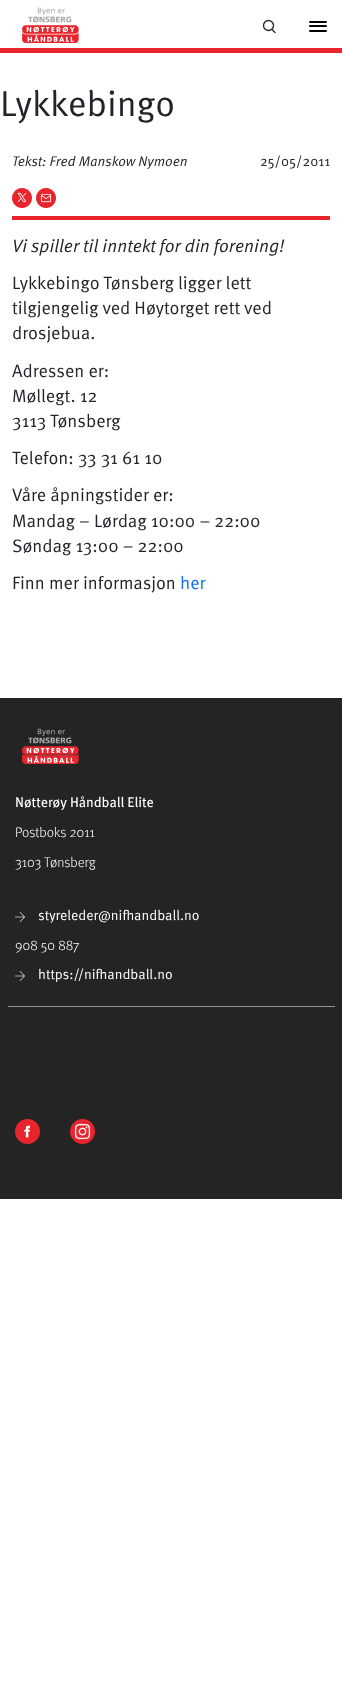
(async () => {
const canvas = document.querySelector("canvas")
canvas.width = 342
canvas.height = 1703
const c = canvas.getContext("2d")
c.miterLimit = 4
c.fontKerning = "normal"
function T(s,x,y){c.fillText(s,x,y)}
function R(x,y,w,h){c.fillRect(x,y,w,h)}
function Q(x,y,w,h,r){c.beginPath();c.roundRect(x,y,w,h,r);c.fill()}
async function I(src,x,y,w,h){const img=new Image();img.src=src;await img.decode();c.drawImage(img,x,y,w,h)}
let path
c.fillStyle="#fff"
R(0,0,342,1703)
await I("1.png",22,7,57,36)
c.beginPath()
c.arc(268.5,25.5,5,0,7)
c.strokeStyle="#212529"
c.lineWidth=1.3
c.stroke()
path = new Path2D("M275 32.5l-3-3")
c.lineCap="round"
c.lineJoin="round"
c.stroke(path)
c.fillStyle="#000"
Q(309,21,18,2,1)
Q(309,25,18,2,1)
Q(309,30,18,2,1)
c.fillStyle="#e8242d"
R(0,48,342,5)
c.font="36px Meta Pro"
c.fillStyle="#212529"
T("Lykkebingo",0,116)
c.font="italic 14px Meta Pro"
T("Tekst: Fred Manskow Nymoen",12,166)
c.font="14px Meta Pro"
T("25/05/2011",260,166)
await I("2.png",12,188,20,20)
await I("3.png",36,188,20,20)
c.fillStyle="#e8242d"
R(12,216,318,4)
c.font="italic 18px Meta Pro"
c.fillStyle="#212529"
T("Vi spiller til inntekt for din forening!",12,252)
c.font="18px Meta Pro"
T("Lykkebingo Tønsberg ligger lett",12,289)
T("tilgjengelig ved Høytorget rett ved",12,314)
T("drosjebua.",12,339)
T("Adressen er:",12,377)
T("Møllegt. 12",12,402)
T("3113 Tønsberg",12,427)
T("Telefon: 33 31 61 10",12,464)
T("Våre åpningstider er:",12,501)
T("Mandag – Lørdag 10:00 – 22:00",12,527)
T("Søndag 13:00 – 22:00",12,552)
T("Finn mer informasjon",12,589)
c.fillStyle="#0d6efd"
T("her",180,589)
c.fillStyle="#242424"
R(0,698,342,501)
c.fillStyle="#929292"
R(8,1006,327,1)
await I("4.png",22,728,57,36)
c.font="14px 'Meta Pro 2'"
c.fillStyle="#fff"
T("Nøtterøy Håndball Elite",15,807)
c.font="300 14px Meta Pro"
T("Postboks 2011",15,837)
T("3103 Tønsberg",15,867)
await I("5.png",15,912,10,10)
c.font="14px Meta Pro"
T("styreleder@nifhandball.no",38,920)
c.font="300 14px Meta Pro"
T("908 50 887",15,950)
await I("5.png",15,971,10,10)
c.font="14px Meta Pro"
T("https://nifhandball.no",38,979)
await I("6.png",15,1119,25,25)
await I("7.png",70,1119,25,25)
})()
